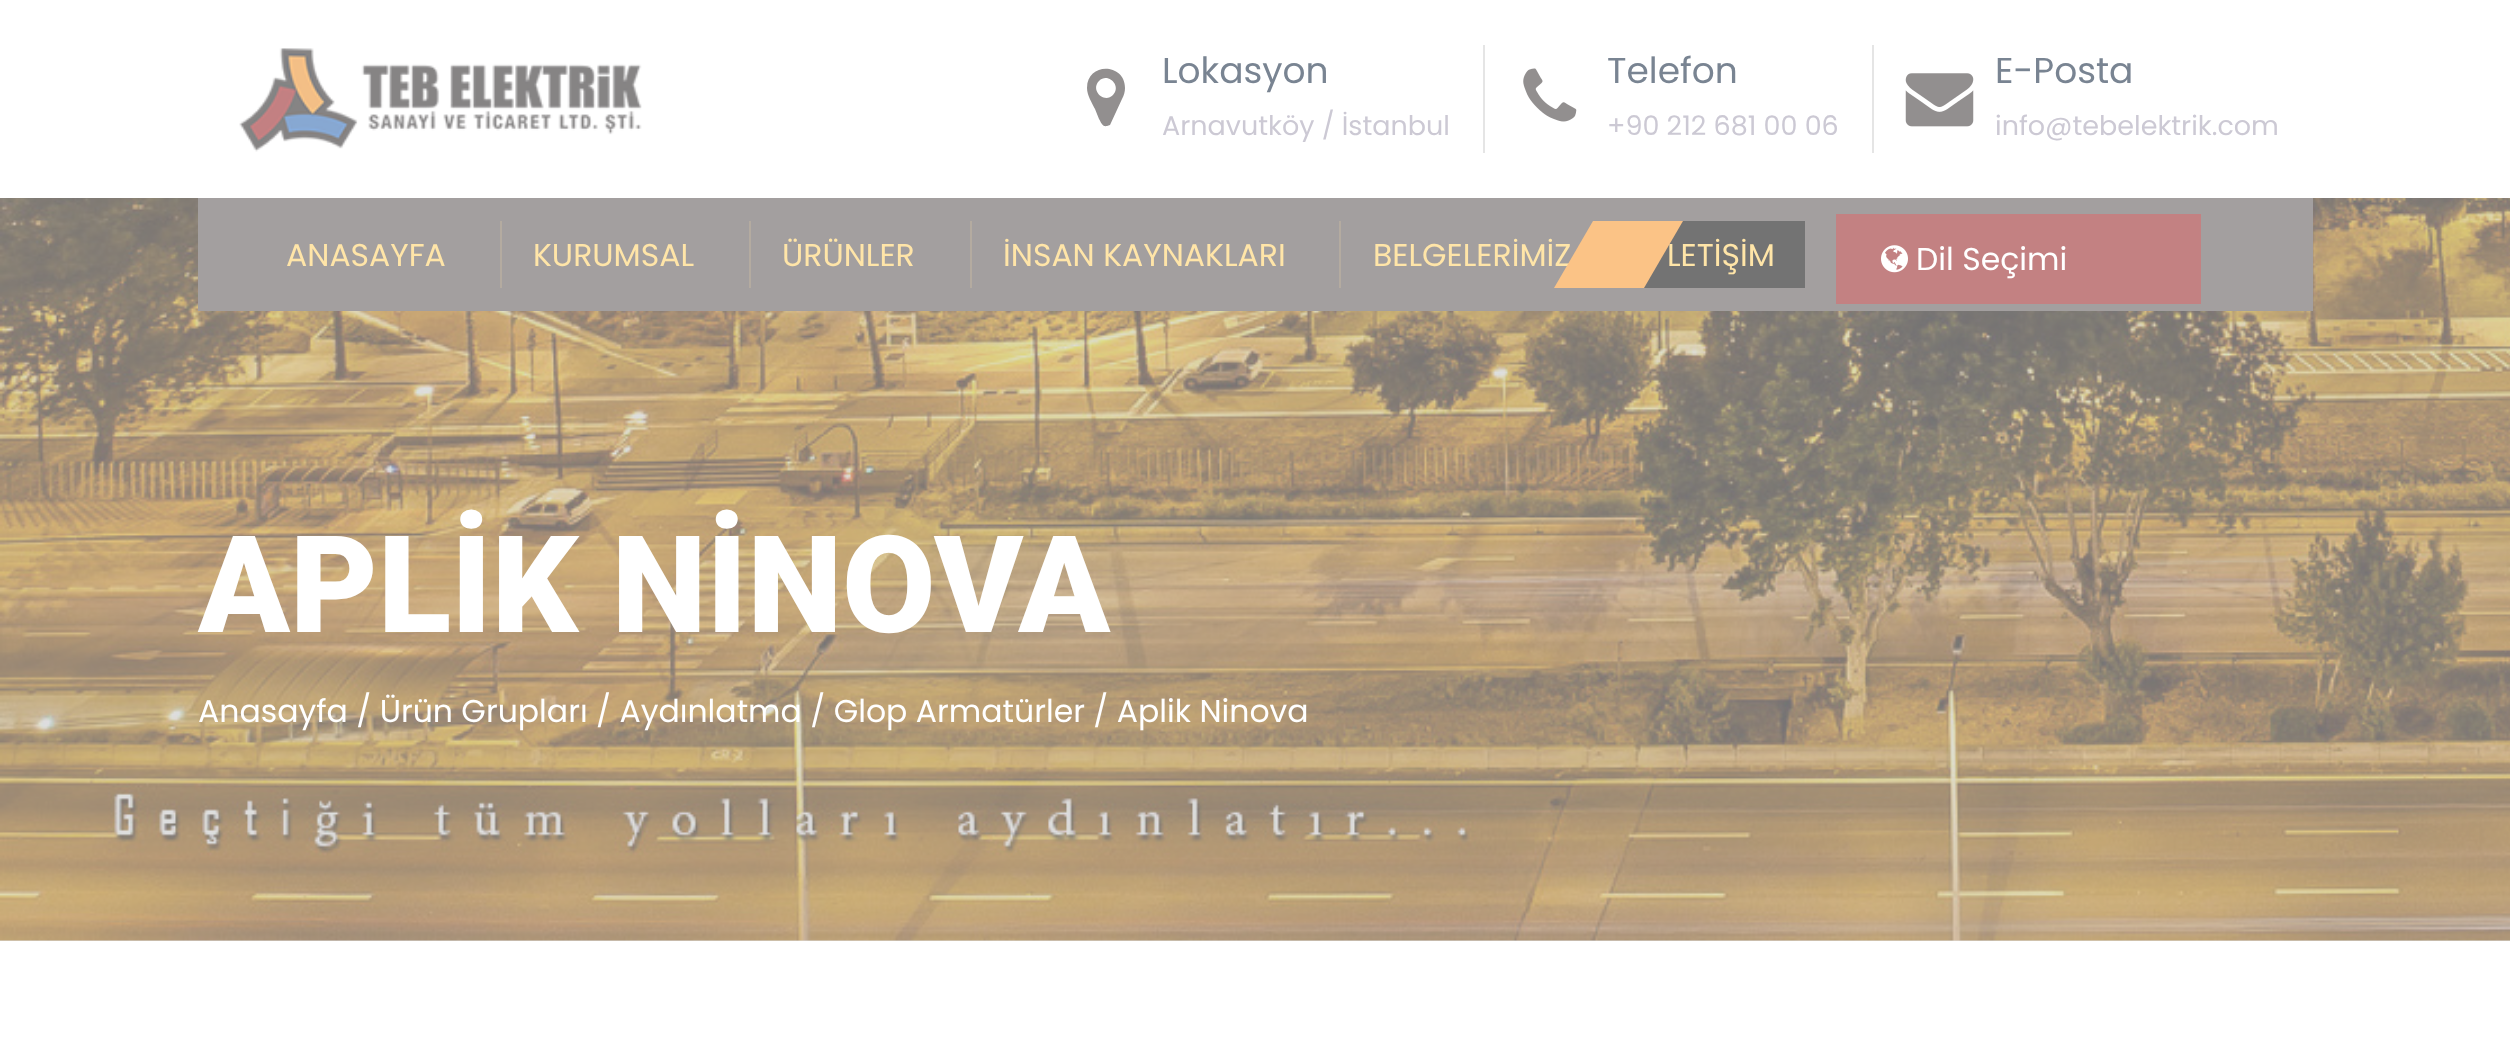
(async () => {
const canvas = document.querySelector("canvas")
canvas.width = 2510
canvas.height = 1064
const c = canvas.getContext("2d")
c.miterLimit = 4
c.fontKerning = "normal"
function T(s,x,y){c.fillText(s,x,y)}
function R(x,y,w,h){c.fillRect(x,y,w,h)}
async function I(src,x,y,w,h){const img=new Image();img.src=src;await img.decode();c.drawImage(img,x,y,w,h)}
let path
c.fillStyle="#fff"
R(0,0,2510,1064)
c.fillStyle="#dfdfdf"
R(0,940,2510,1)
await I("1.png",239,48,403,104)
c.fillStyle="#e5e5e5"
R(1483,45,2,108)
c.fillStyle="#928f8f"
path = new Path2D("M1113 95c9-9-5-23-14-14c-9 9 5 23 14 14zm12-7c0 4-1 7-3 11l-12 26l-3 1c-5 1-6-4-8-7l-4-10c-3-6-8-14-8-21c0-26 38-25 38 0z")
c.fill(path)
c.font="36px Poppins"
c.fillStyle="#798492"
T("Lokasyon",1162,83)
c.font="27px Poppins"
c.fillStyle="#ccc9d4"
T("Arnavutköy / İstanbul",1162,135)
c.fillStyle="#e5e5e5"
R(1872,45,2,108)
await I("2.png",1523,68,54,54)
c.font="36px Poppins"
c.fillStyle="#798492"
T("Telefon",1607,83)
c.font="27px Poppins"
c.fillStyle="#ccc9d4"
T("+90 212 681 00 06",1607,135)
await I("3.png",1905,73,69,54)
c.font="36px Poppins"
c.fillStyle="#798492"
T("E-Posta",1995,83)
c.font="27px Poppins"
c.fillStyle="#ccc9d4"
T("info@tebelektrik.com",1995,135)
await I("5.png",0,198,2510,743)
c.fillStyle="#a39f9f"
R(198,198,2115,113)
c.fillStyle="#b4aba0"
R(500,221,2,67)
c.font="31.5px Poppins"
c.fillStyle="#ffe5a8"
T("ANASAYFA",286,266)
c.fillStyle="#b4aba0"
R(749,221,2,67)
c.fillStyle="#ffe5a8"
T("KURUMSAL",533,266)
c.fillStyle="#b4aba0"
R(970,221,2,67)
c.fillStyle="#ffe5a8"
T("ÜRÜNLER",782,266)
c.fillStyle="#b4aba0"
R(1339,221,2,67)
c.fillStyle="#ffe5a8"
T("İNSAN KAYNAKLARI",1003,266)
T("BELGELERİMİZ",1373,266)
c.fillStyle="#737373"
R(1644,221,161,67)
c.fillStyle="#ffe5a8"
T("LETİŞİM",1667,266)
c.fillStyle="#fbc386"
path = new Path2D("M1593 221h90l-39 67h-90z")
c.fill(path)
c.fillStyle="#c38182"
R(1836,214,365,90)
await I("4.png",1881,245,27,28)
c.fillStyle="#fff"
T("Dil Seçimi",1916,270)
c.font="900 135px Roboto"
T("APLİK NİNOVA",198,632)
c.font="31.5px Poppins"
T("Anasayfa / Ürün Grupları / Aydınlatma / Glop Armatürler / Aplik Ninova",198,722)
})()
